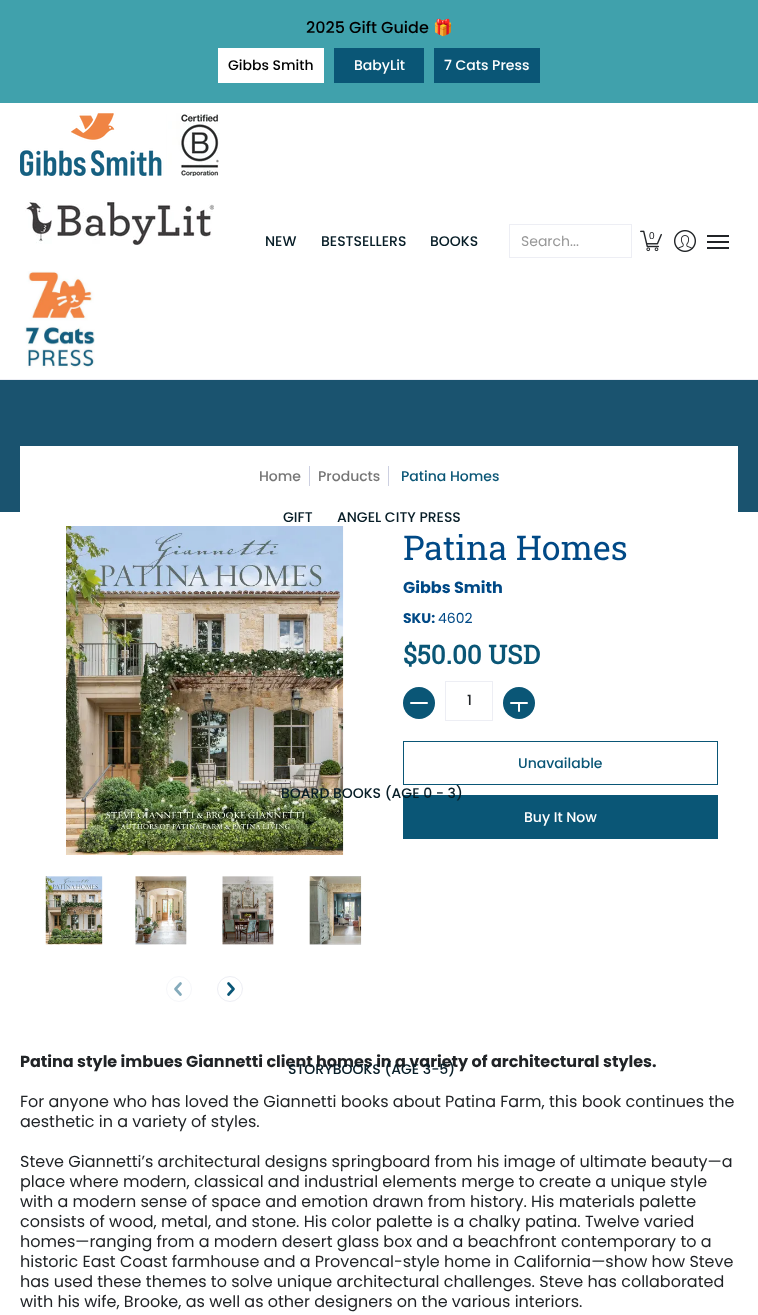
(async () => {
const canvas = document.querySelector("canvas")
canvas.width = 758
canvas.height = 1315
const c = canvas.getContext("2d")
c.miterLimit = 4
c.fontKerning = "normal"
function T(s,x,y){c.fillText(s,x,y)}
function R(x,y,w,h){c.fillRect(x,y,w,h)}
async function I(src,x,y,w,h){const img=new Image();img.src=src;await img.decode();c.drawImage(img,x,y,w,h)}
let path
c.fillStyle="#fff"
R(0,0,758,1315)
c.fillStyle="#40a1ac"
R(0,0,758,103)
c.font="500 16px Poppins"
c.fillStyle="#000"
T("2025 Gift Guide",306,33)
c.font="16px Noto Color Emoji"
T("🎁",433,33)
c.fillStyle="#fff"
R(218,48,106,35)
c.font="500 14px Poppins"
c.fillStyle="#000"
T("Gibbs Smith",228,70)
c.fillStyle="#0a5676"
R(334,48,90,35)
c.fillStyle="#fff"
T("BabyLit",354,70)
c.fillStyle="#0a5676"
R(434,48,106,35)
c.fillStyle="#fff"
T("7 Cats Press",444,70)
c.fillStyle="#edeef4"
R(0,379,758,1)
await I("1.png",20,113,200,63)
await I("2.png",25,200,189,45)
await I("3.png",24,271,71,97)
c.fillStyle="#071d27"
T("NEW",265,246)
T("BESTSELLERS",321,246)
T("BOOKS",430,246)
T("GIFT",283,522)
T("ANGEL CITY PRESS",337,522)
await I("6.png",66,526,278,329)
c.strokeStyle="#0a5676"
c.strokeRect(403.5,741.5,314,43)
c.fillStyle="#0a5676"
R(403,795,315,44)
c.fillStyle="#071d27"
T("BOARD BOOKS (AGE 0 - 3)",281,798)
c.font="bold 16px Poppins"
c.fillStyle="#212427"
T("Patina style imbues Giannetti client homes in a variety of architectural styles.",20,1067)
c.font="500 14px Poppins"
c.fillStyle="#071d27"
T("STORYBOOKS (AGE 3-5)",288,1074)
c.strokeStyle="#edeef4"
c.strokeRect(509.5,224.5,122,33)
c.font="14px Poppins"
c.fillStyle="#989898"
T("Search...",521,246)
await I("4.png",640,230,22,22)
c.font="10px Liberation Sans"
c.fillStyle="#212427"
T("0",649,239)
await I("5.png",674,230,22,22)
R(707,235,22,2)
R(707,247,22,2)
R(707,241,22,2)
c.fillStyle="#1a536f"
R(0,380,758,132)
c.fillStyle="#fff"
R(20,446,718,66)
c.font="500 14px Poppins"
c.fillStyle="#767676"
T("Home",259,481)
c.fillStyle="#cdd0e1"
R(309,466,1,20)
c.fillStyle="#767676"
T("Products",318,481)
c.fillStyle="#cdd0e1"
R(388,466,1,20)
c.fillStyle="#0a5676"
T("Patina Homes",401,481)
await I("7.png",45,876,58,69)
await I("8.png",135,876,52,69)
await I("9.png",222,876,52,69)
await I("10.png",309,876,53,69)
c.beginPath()
c.arc(179,989,12.5,0,7)
c.strokeStyle="#f6f7fa"
c.stroke()
path = new Path2D("M180.5 983.5l-5 5.5l5 5.5")
c.strokeStyle="#85abbb"
c.lineWidth=2.7
c.lineCap="round"
c.lineJoin="round"
c.stroke(path)
c.beginPath()
c.arc(230,989,12.5,0,7)
c.strokeStyle="#edeef4"
c.lineWidth=1
c.stroke()
path = new Path2D("M228.5 994.5l5-5.5l-5-5.5")
c.strokeStyle="#0a5676"
c.lineWidth=2.7
c.stroke(path)
c.font="34px Roboto Slab"
c.fillStyle="#004986"
T("Patina Homes",403,560)
c.font="bold 16px Poppins"
T("Gibbs Smith",403,593)
c.font="bold 14px Poppins"
T("SKU:",403,623)
c.font="14px Poppins"
T("4602",438,623)
c.font="bold 26px Roboto Slab"
c.fillStyle="#0a5676"
T("$50.00 USD",403,664)
c.beginPath()
c.arc(419,703,16,0,7)
c.fill()
await I("11.png",410,702,18,2)
c.strokeStyle="#edeef4"
c.lineWidth=1
c.lineJoin="miter"
c.strokeRect(445.5,681.5,47,39)
c.font="500 14px Poppins"
c.fillStyle="#212427"
T("1",467,705)
c.fillStyle="#0a5676"
c.beginPath()
c.arc(519,703,16,0,7)
c.fill()
await I("12.png",510,702,18,10)
T("Unavailable",518,768)
c.fillStyle="#fff"
T("Buy It Now",524,822)
c.font="16px Poppins"
c.fillStyle="#212427"
T("For anyone who has loved the Giannetti books about Patina Farm, this book continues the",20,1107)
T("aesthetic in a variety of styles.",20,1127)
T("Steve Giannetti’s architectural designs springboard from his image of ultimate beauty—a",20,1167)
T("place where modern, classical and industrial elements merge to create a unique style",20,1187)
T("with a modern sense of space and emotion drawn from history. His materials palette",20,1207)
T("consists of wood, metal, and stone. His color palette is a chalky patina. Twelve varied",20,1227)
T("homes—ranging from a modern desert glass box and a beachfront contemporary to a",20,1247)
T("historic East Coast farmhouse and a Provencal-style home in California—show how Steve",20,1267)
T("has used these themes to solve unique architectural challenges. Steve has collaborated",20,1287)
T("with his wife, Brooke, as well as other designers on the various interiors.",20,1307)
})()
